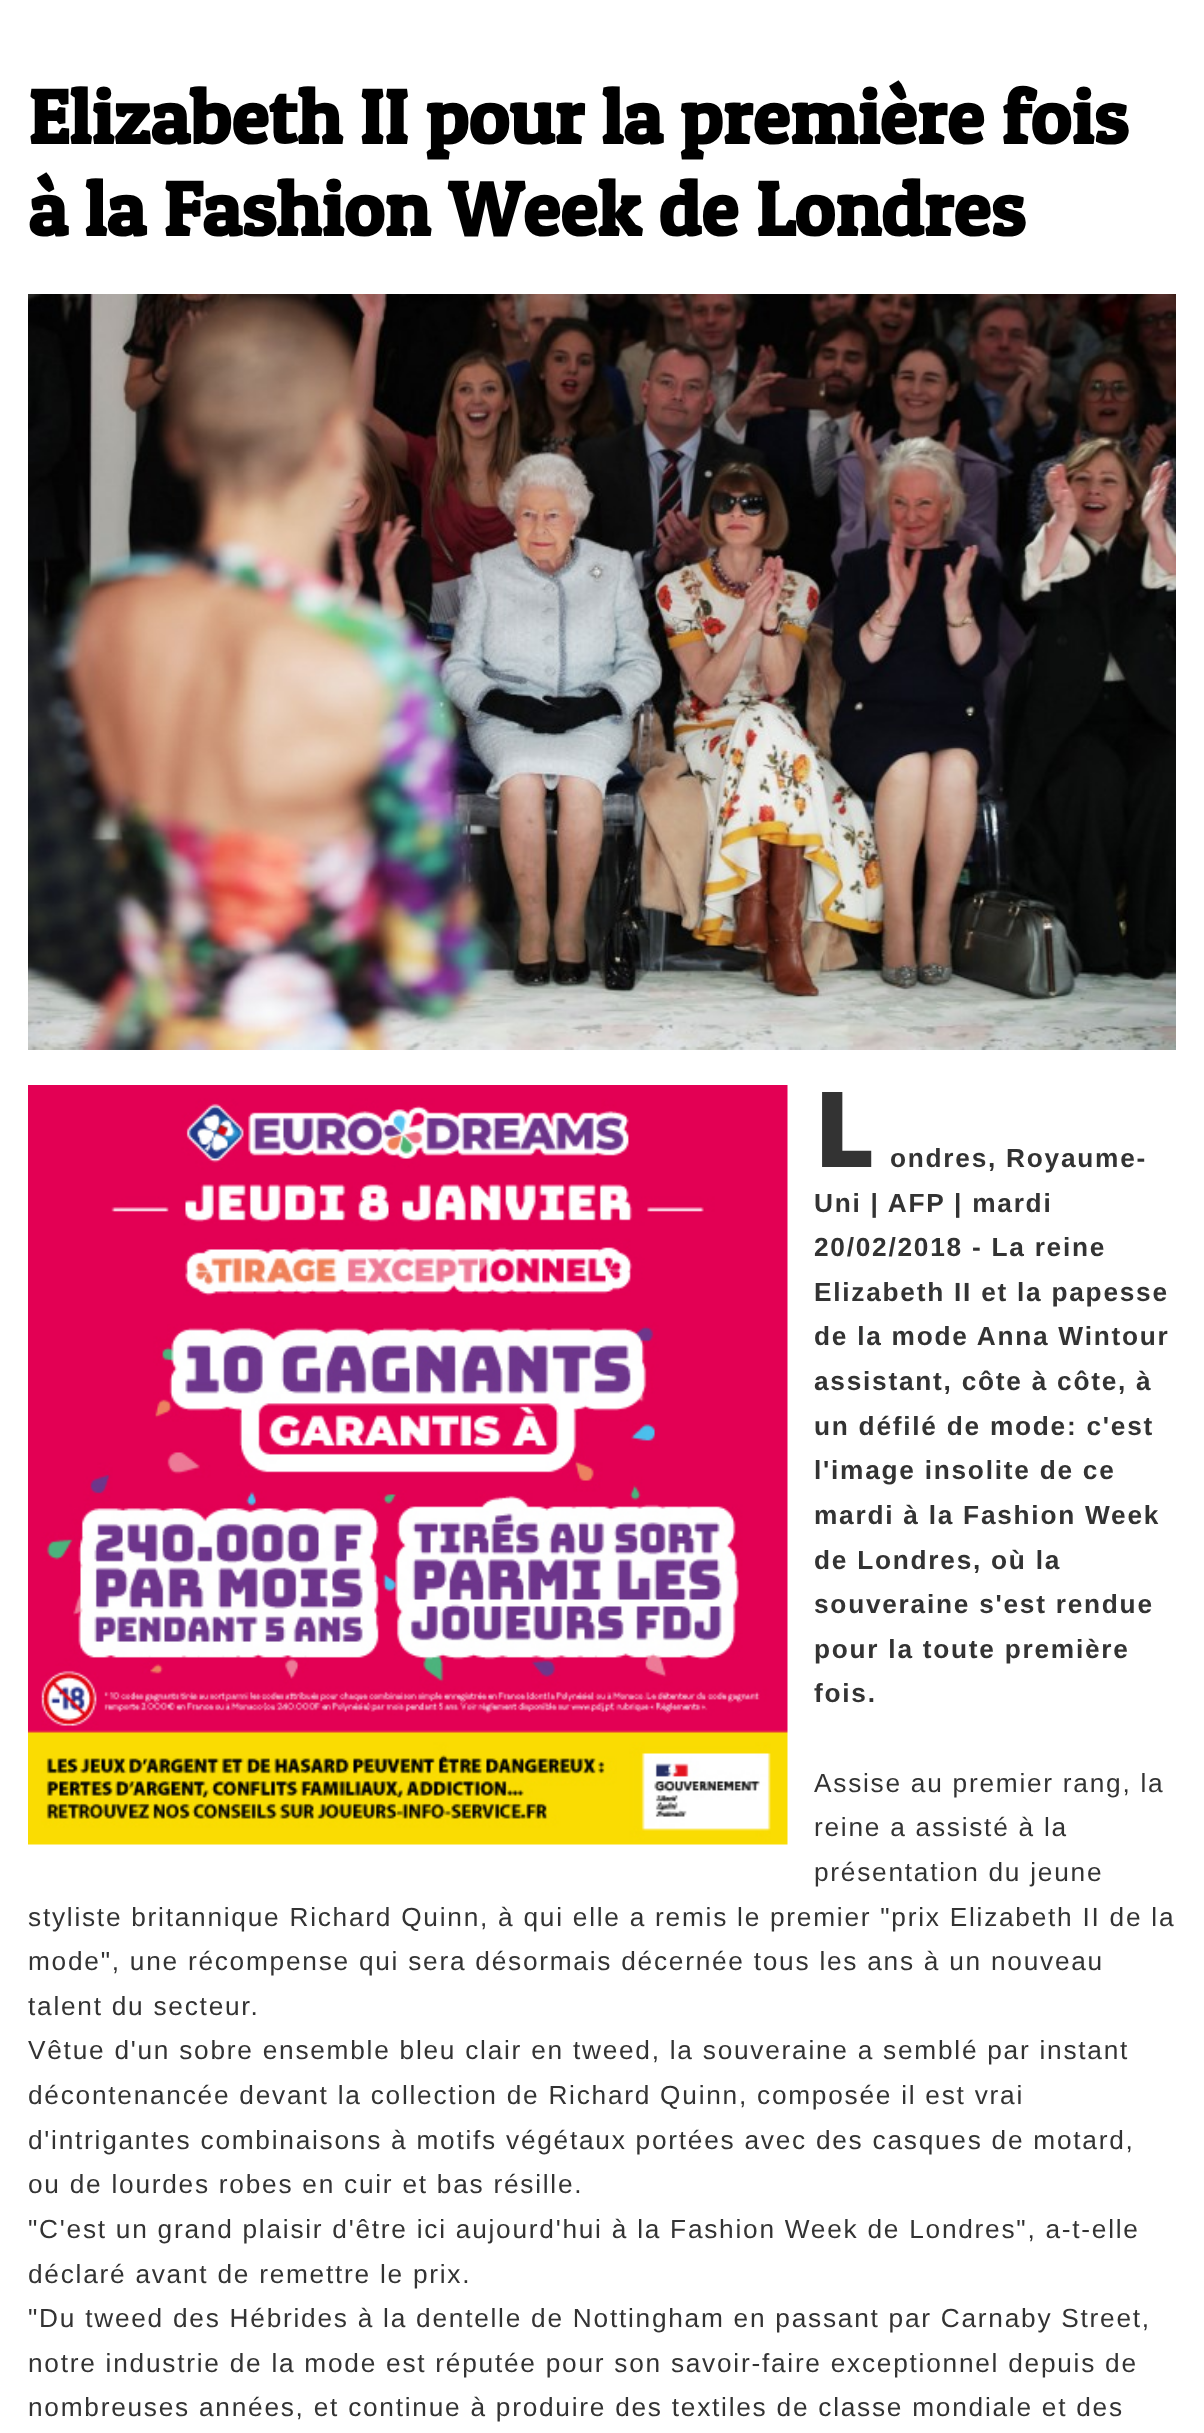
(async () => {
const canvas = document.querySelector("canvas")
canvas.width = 1204
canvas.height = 2433
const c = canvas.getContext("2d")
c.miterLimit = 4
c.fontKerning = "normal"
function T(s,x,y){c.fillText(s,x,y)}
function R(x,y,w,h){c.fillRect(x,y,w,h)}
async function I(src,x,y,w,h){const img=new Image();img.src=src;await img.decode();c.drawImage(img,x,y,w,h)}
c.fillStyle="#fff"
R(0,0,1204,2433)
c.font="bold 77px Patua One"
c.fillStyle="#000"
T("Elizabeth II pour la première fois",28,144)
T("à la Fashion Week de Londres",28,236)
await I("1.png",28,294,1148,756)
await I("2.png",28,1085,760,760)
c.letterSpacing="1.75px"
c.font="900 105px Noto Sans"
c.fillStyle="#333"
T("L",814,1167)
c.font="bold 26.25px Liberation Sans"
T("ondres, Royaume-",890,1167)
T("Uni | AFP | mardi",814,1212)
T("20/02/2018 - La reine",814,1256)
T("Elizabeth II et la papesse",814,1301)
T("de la mode Anna Wintour",814,1345)
T("assistant, côte à côte, à",814,1390)
T("un défilé de mode: c'est",814,1435)
T("l'image insolite de ce",814,1479)
T("mardi à la Fashion Week",814,1524)
T("de Londres, où la",814,1569)
T("souveraine s'est rendue",814,1613)
T("pour la toute première",814,1658)
T("fois.",814,1702)
c.font="26.25px Liberation Sans"
T("Assise au premier rang, la",814,1792)
T("reine a assisté à la",814,1836)
T("présentation du jeune",814,1881)
T("styliste britannique Richard Quinn, à qui elle a remis le premier \"prix Elizabeth II de la",28,1926)
T("mode\", une récompense qui sera désormais décernée tous les ans à un nouveau",28,1970)
T("talent du secteur.",28,2015)
T("Vêtue d'un sobre ensemble bleu clair en tweed, la souveraine a semblé par instant",28,2059)
T("décontenancée devant la collection de Richard Quinn, composée il est vrai",28,2104)
T("d'intrigantes combinaisons à motifs végétaux portées avec des casques de motard,",28,2149)
T("ou de lourdes robes en cuir et bas résille.",28,2193)
T("\"C'est un grand plaisir d'être ici aujourd'hui à la Fashion Week de Londres\", a-t-elle",28,2238)
T("déclaré avant de remettre le prix.",28,2283)
T("\"Du tweed des Hébrides à la dentelle de Nottingham en passant par Carnaby Street,",28,2327)
T("notre industrie de la mode est réputée pour son savoir-faire exceptionnel depuis de",28,2372)
T("nombreuses années, et continue à produire des textiles de classe mondiale et des",28,2416)
})()
